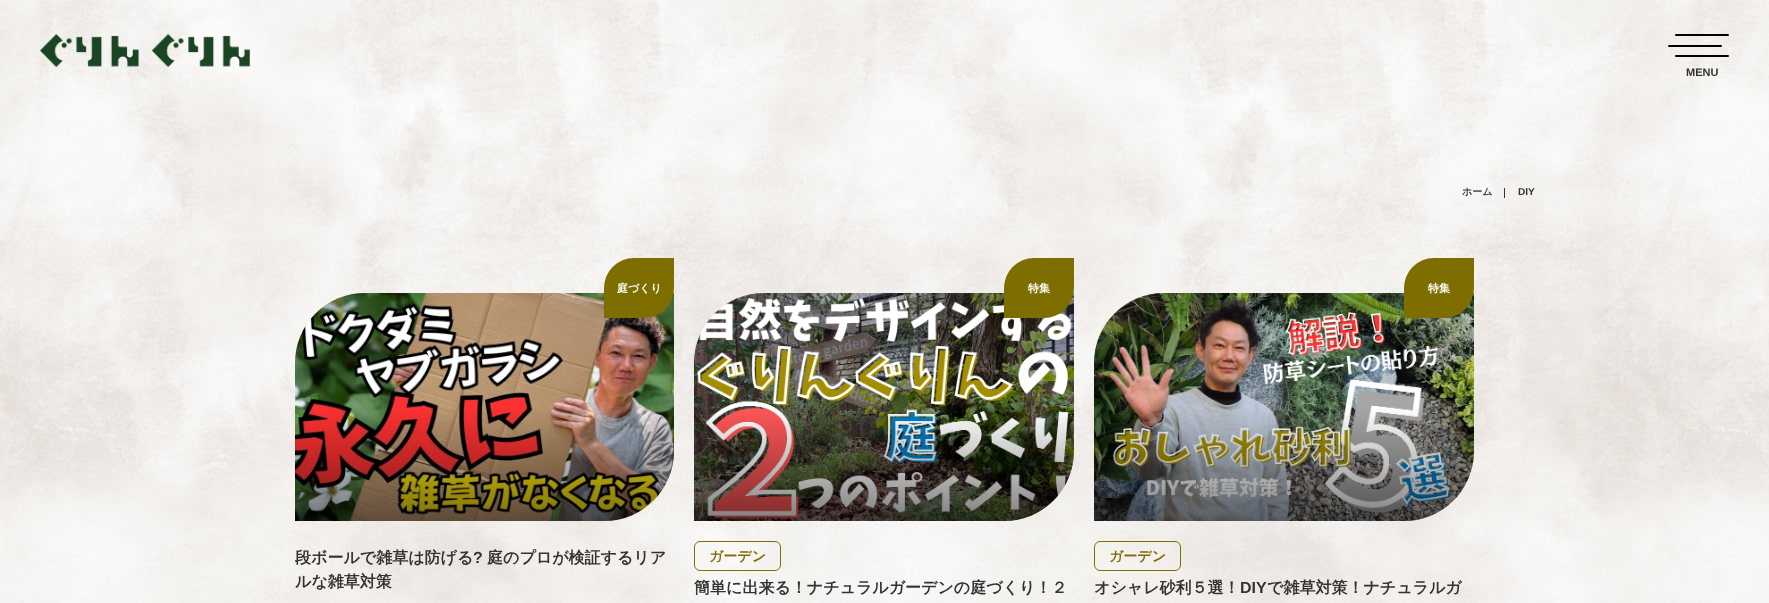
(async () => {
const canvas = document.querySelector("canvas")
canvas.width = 1769
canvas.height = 603
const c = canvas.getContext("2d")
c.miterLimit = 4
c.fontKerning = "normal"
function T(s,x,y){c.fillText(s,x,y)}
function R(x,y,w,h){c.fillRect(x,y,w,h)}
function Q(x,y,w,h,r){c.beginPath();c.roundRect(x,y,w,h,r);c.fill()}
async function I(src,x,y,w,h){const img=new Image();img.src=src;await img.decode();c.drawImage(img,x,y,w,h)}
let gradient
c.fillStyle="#fff"
R(0,0,1769,603)
await I("1.png",0,0,1769,603)
await I("2.png",40,34,210,33)
c.fillStyle="#000"
Q(1675,34,54,2,1)
Q(1668,45,54,2,1)
Q(1675,55,54,2,1)
c.font="bold 11px Liberation Sans"
c.fillStyle="#333"
T("MENU",1686,76)
c.font="bold 10px WenQuanYi Zen Hei"
T("ホーム",1462,195)
R(1504,188,1,10)
c.font="bold 10px Liberation Sans"
T("DIY",1518,195)
c.fillStyle="#ddd"
c.beginPath()
c.roundRect(295,293,379,228,[70,0,70,0])
c.fill()
await I("3.png",295,293,379,228)
c.fillStyle="#7e6e00"
c.beginPath()
c.roundRect(604,258,70,60,[30,0,30,0])
c.fill()
c.font="bold 11px WenQuanYi Zen Hei"
c.fillStyle="#fff"
T("庭づくり",617,292)
gradient = c.createLinearGradient(485,521,485,407)
gradient.addColorStop(0,"#00000080")
gradient.addColorStop(1,"#00000000")
c.fillStyle = gradient
c.beginPath()
c.roundRect(295,407,379,114,[0,0,70,0])
c.fill()
c.font="bold 16px WenQuanYi Zen Hei"
c.fillStyle="#333"
T("段ボールで雑草は防げる",295,563)
c.font="bold 16px Liberation Sans"
T("?",473,563)
c.font="bold 16px WenQuanYi Zen Hei"
T("庭のプロが検証するリア",487,563)
T("ルな雑草対策",295,587)
c.fillStyle="#ddd"
c.beginPath()
c.roundRect(694,293,380,228,[70,0,70,0])
c.fill()
await I("4.png",694,293,380,228)
c.fillStyle="#7e6e00"
c.beginPath()
c.roundRect(1004,258,70,60,[30,0,30,0])
c.fill()
c.font="bold 11px WenQuanYi Zen Hei"
c.fillStyle="#fff"
T("特集",1028,292)
gradient = c.createLinearGradient(884,521,884,407)
gradient.addColorStop(0,"#00000080")
gradient.addColorStop(1,"#00000000")
c.fillStyle = gradient
c.beginPath()
c.roundRect(694,407,380,114,[0,0,70,0])
c.fill()
c.beginPath()
c.roundRect(694.5,541.5,86,29,5.5)
c.strokeStyle="#7e6e00"
c.stroke()
c.font="bold 14px WenQuanYi Zen Hei"
c.fillStyle="#7e6e00"
T("ガーデン",709,561)
c.font="bold 16px WenQuanYi Zen Hei"
c.fillStyle="#333"
T("簡単に出来る！ナチュラルガーデンの庭づくり！２",694,593)
c.fillStyle="#ddd"
c.beginPath()
c.roundRect(1094,293,380,228,[70,0,70,0])
c.fill()
await I("5.png",1094,293,380,228)
c.fillStyle="#7e6e00"
c.beginPath()
c.roundRect(1404,258,70,60,[30,0,30,0])
c.fill()
c.font="bold 11px WenQuanYi Zen Hei"
c.fillStyle="#fff"
T("特集",1428,292)
gradient = c.createLinearGradient(1284,521,1284,407)
gradient.addColorStop(0,"#00000080")
gradient.addColorStop(1,"#00000000")
c.fillStyle = gradient
c.beginPath()
c.roundRect(1094,407,380,114,[0,0,70,0])
c.fill()
c.beginPath()
c.roundRect(1094.5,541.5,86,29,5.5)
c.stroke()
c.font="bold 14px WenQuanYi Zen Hei"
c.fillStyle="#7e6e00"
T("ガーデン",1109,561)
c.font="bold 16px WenQuanYi Zen Hei"
c.fillStyle="#333"
T("オシャレ砂利５選！",1094,593)
c.font="bold 16px Liberation Sans"
T("DIY",1240,593)
c.font="bold 16px WenQuanYi Zen Hei"
T("で雑草対策！ナチュラルガ",1267,593)
})()
